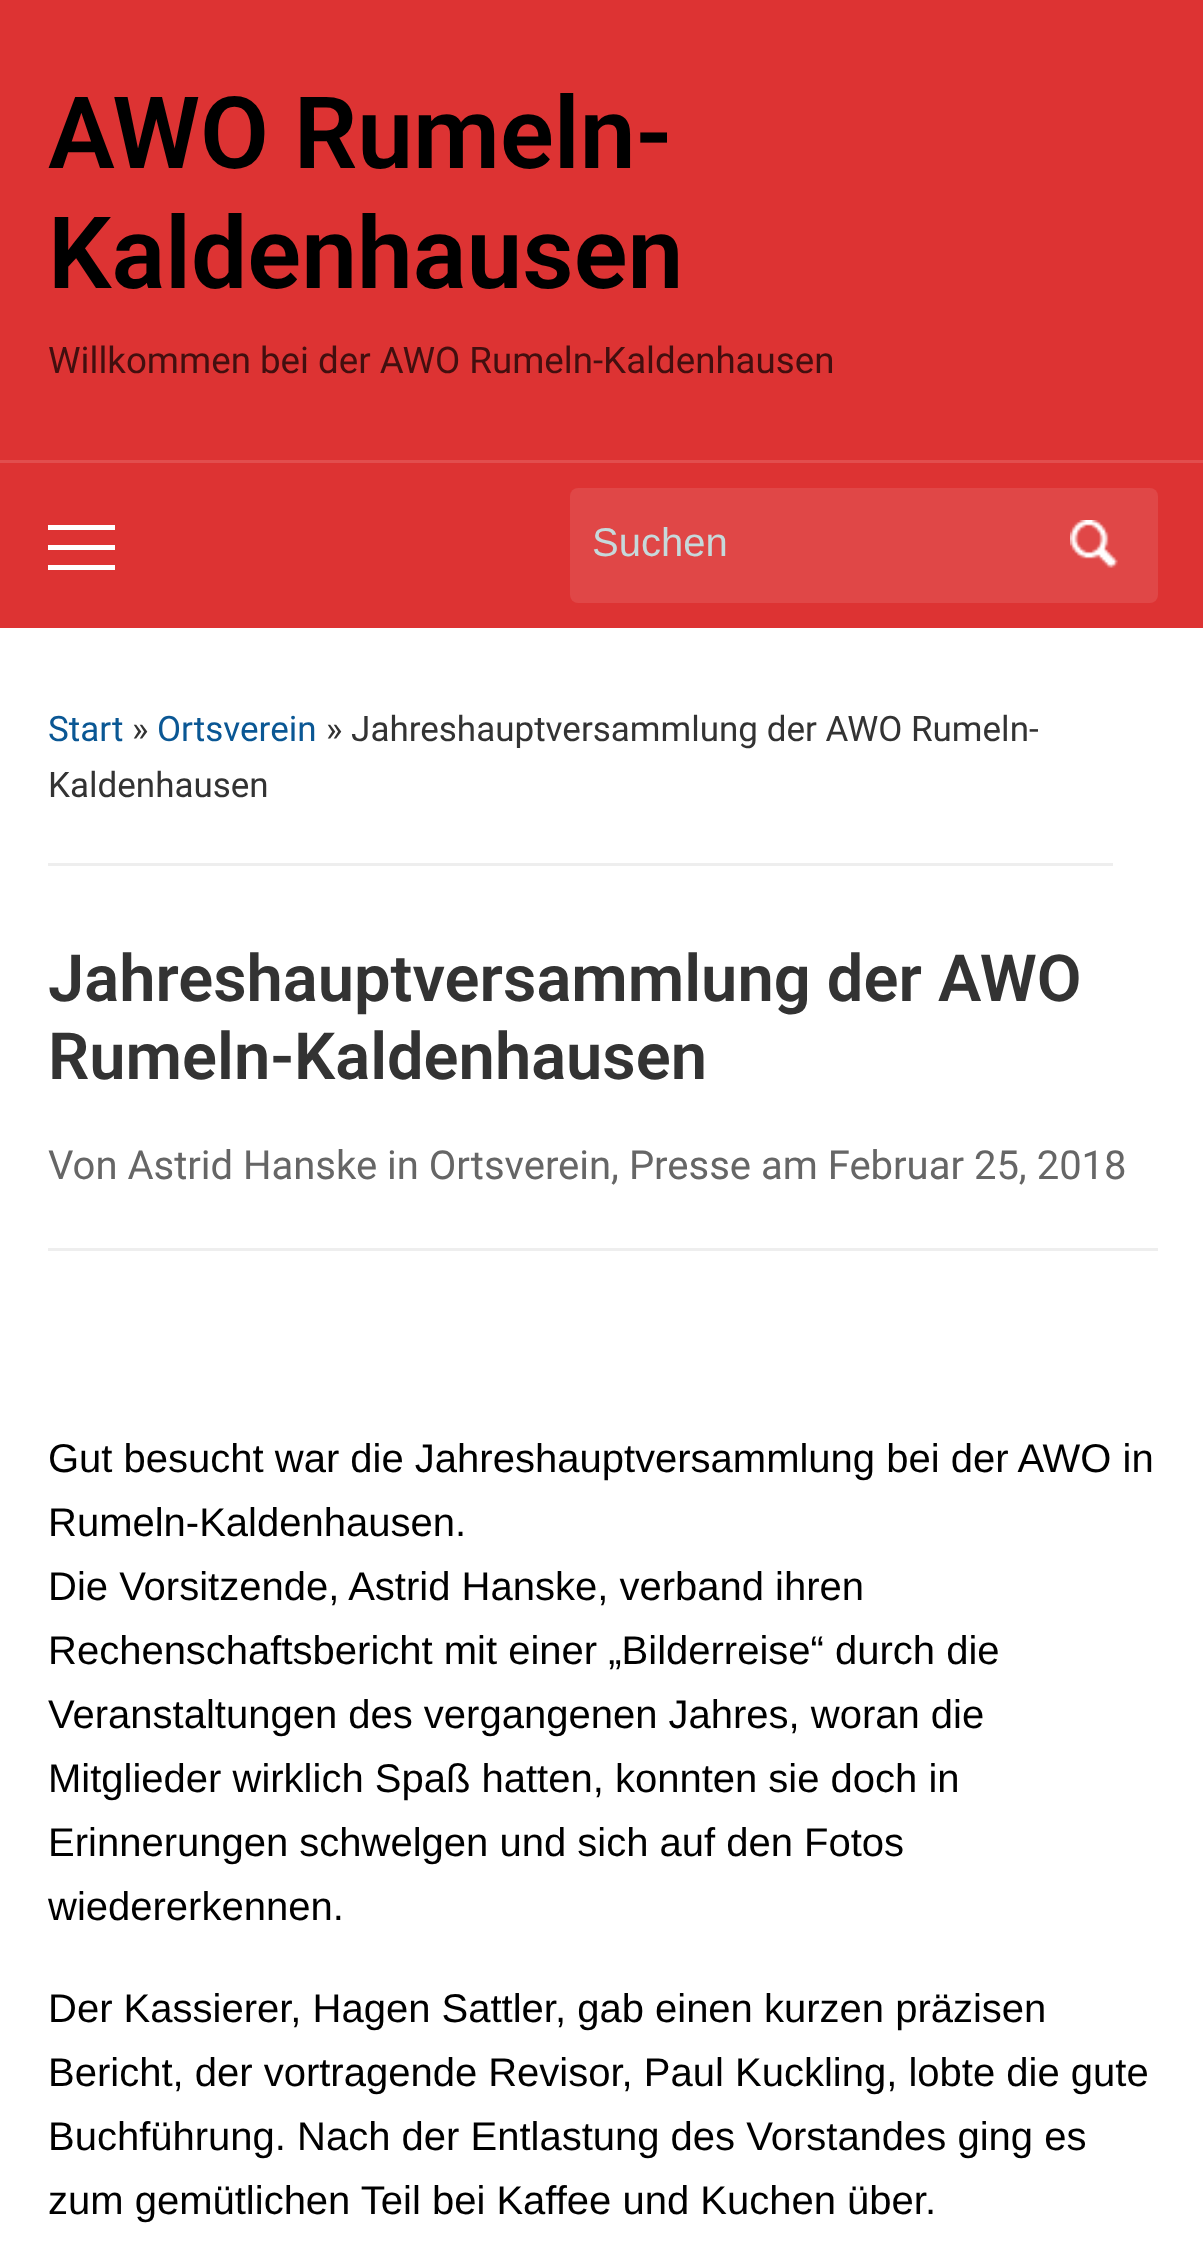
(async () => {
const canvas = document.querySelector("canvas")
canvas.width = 1203
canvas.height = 2266
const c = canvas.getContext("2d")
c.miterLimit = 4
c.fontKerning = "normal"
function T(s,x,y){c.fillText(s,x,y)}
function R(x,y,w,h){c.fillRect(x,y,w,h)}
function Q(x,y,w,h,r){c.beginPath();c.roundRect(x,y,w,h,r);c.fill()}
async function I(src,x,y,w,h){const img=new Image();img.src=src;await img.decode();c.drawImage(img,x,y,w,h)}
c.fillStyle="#fff"
R(0,0,1203,2266)
c.fillStyle="#d33"
R(0,0,1203,628)
c.font="600 100px Roboto"
c.fillStyle="#000"
T("AWO Rumeln-",48,168)
T("Kaldenhausen",48,288)
c.font="36.7px Roboto"
c.fillStyle="#420f0f"
T("Willkommen bei der AWO Rumeln-Kaldenhausen",48,373)
c.fillStyle="#e14e4e"
R(0,460,1203,3)
c.fillStyle="#fff"
R(48,525,67,5)
R(48,545,67,5)
R(48,565,67,5)
c.fillStyle="#e04747"
Q(570,488,588,115,8)
c.font="40px Liberation Sans"
c.fillStyle="#c6d9db"
T("Suchen",592,556)
await I("1.png",1070,520,48,48)
c.fillStyle="#eee"
R(48,863,1065,3)
c.font="35px Roboto"
c.fillStyle="#0a5794"
T("Start",48,741)
c.fillStyle="#333"
T("»",132,741)
c.fillStyle="#0a5794"
T("Ortsverein",157,741)
c.fillStyle="#333"
T("» Jahreshauptversammlung der AWO Rumeln-",326,741)
T("Kaldenhausen",48,797)
c.font="600 65px Roboto"
T("Jahreshauptversammlung der AWO",48,1001)
T("Rumeln-Kaldenhausen",48,1079)
c.fillStyle="#eee"
R(48,1248,1110,3)
c.font="40px Roboto"
c.fillStyle="#666"
T("Von Astrid Hanske in Ortsverein, Presse am Februar 25, 2018",48,1179)
c.font="40px Liberation Sans"
c.fillStyle="#000"
T("Gut besucht war die Jahreshauptversammlung bei der AWO in",48,1472)
T("Rumeln-Kaldenhausen.",48,1536)
T("Die Vorsitzende, Astrid Hanske, verband ihren",48,1600)
T("Rechenschaftsbericht mit einer „Bilderreise“ durch die",48,1664)
T("Veranstaltungen des vergangenen Jahres, woran die",48,1728)
T("Mitglieder wirklich Spaß hatten, konnten sie doch in",48,1792)
T("Erinnerungen schwelgen und sich auf den Fotos",48,1856)
T("wiedererkennen.",48,1920)
T("Der Kassierer, Hagen Sattler, gab einen kurzen präzisen",48,2022)
T("Bericht, der vortragende Revisor, Paul Kuckling, lobte die gute",48,2086)
T("Buchführung. Nach der Entlastung des Vorstandes ging es",48,2150)
T("zum gemütlichen Teil bei Kaffee und Kuchen über.",48,2214)
})()
